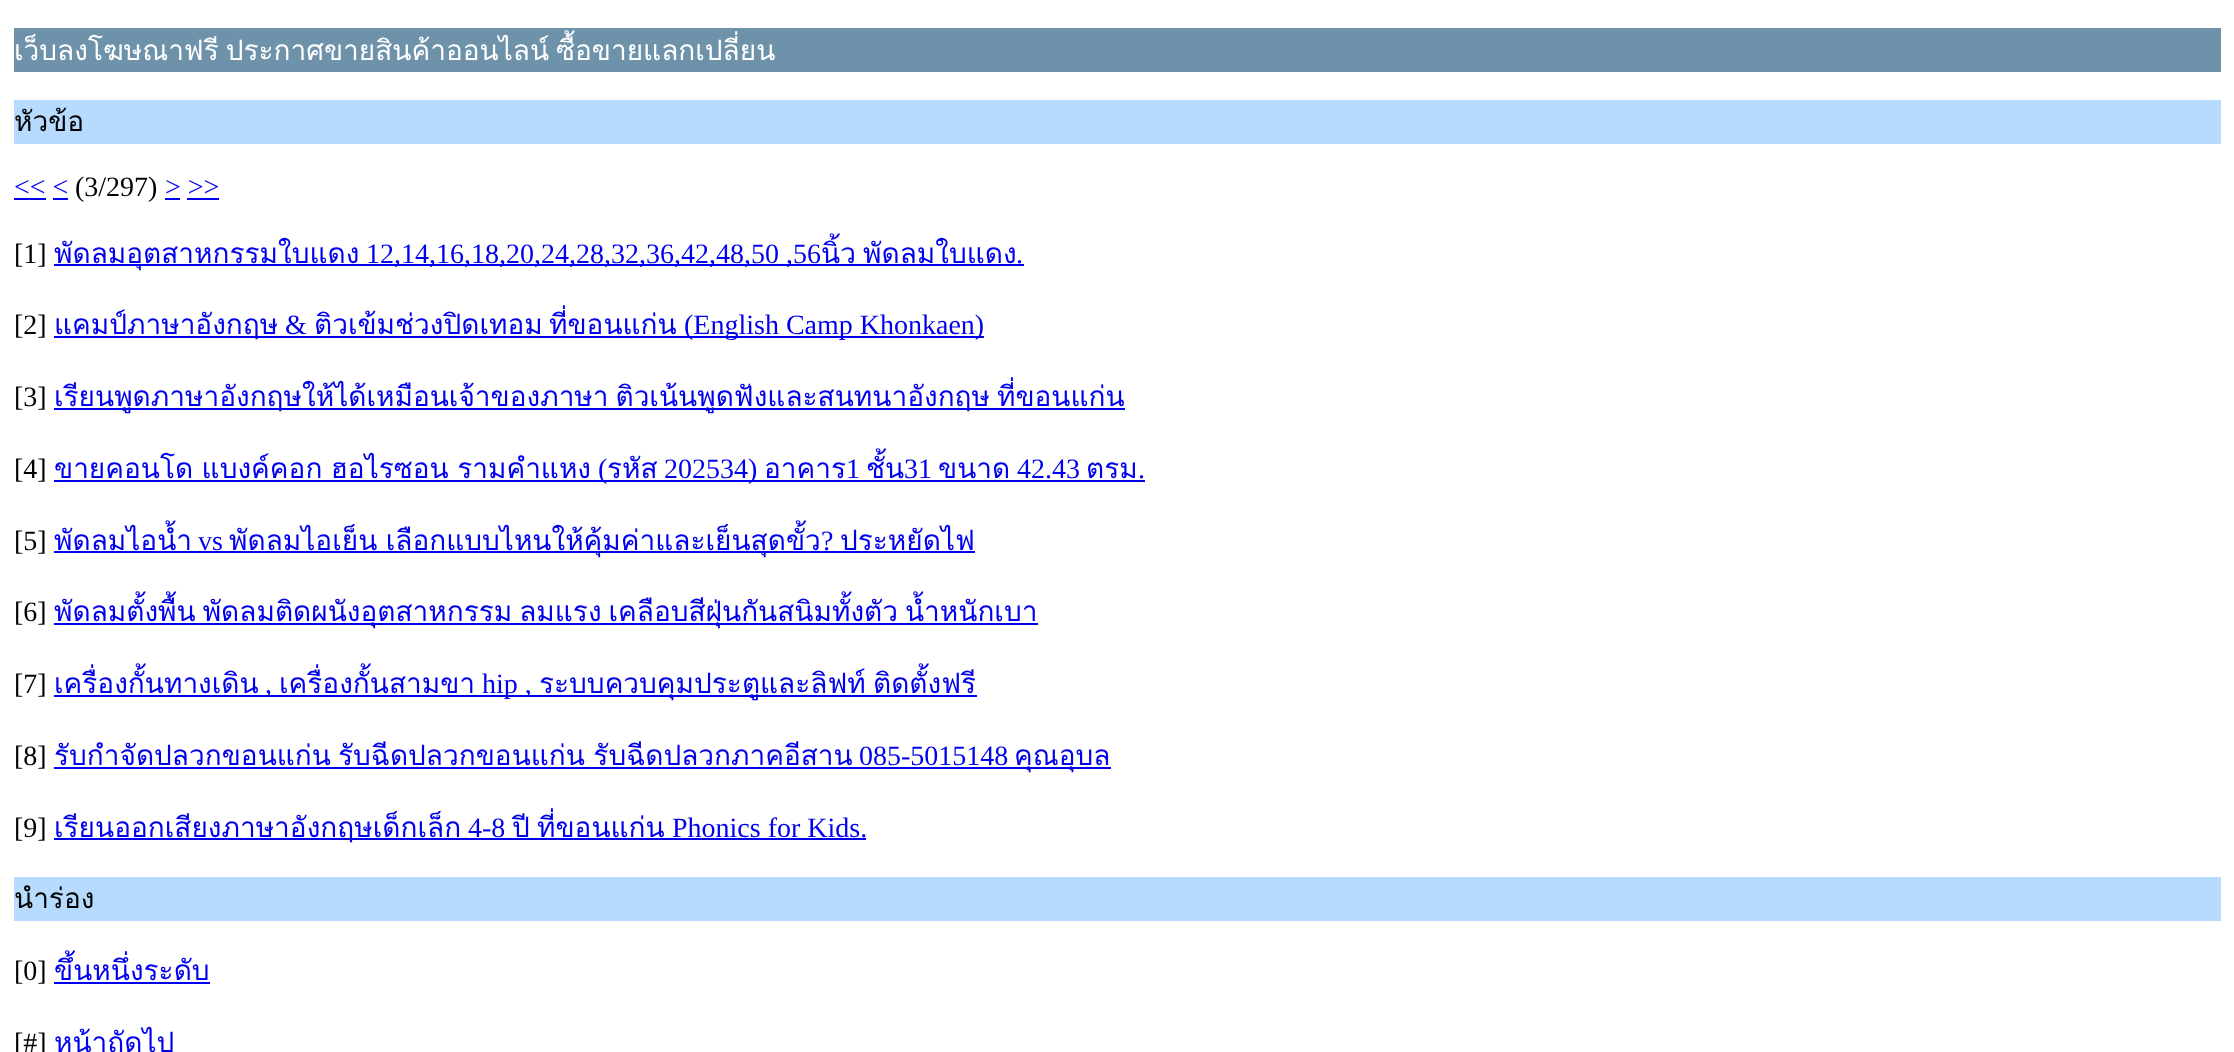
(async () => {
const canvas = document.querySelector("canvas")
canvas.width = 2234
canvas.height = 1052
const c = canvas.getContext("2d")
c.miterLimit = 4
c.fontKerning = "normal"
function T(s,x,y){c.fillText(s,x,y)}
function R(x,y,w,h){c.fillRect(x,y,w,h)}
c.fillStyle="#fff"
R(0,0,2234,1052)
c.fillStyle="#6d92aa"
R(14,28,2207,44)
c.wordSpacing="-2.5px"
c.font="28px Loma"
c.fillStyle="#fff"
T("เว็บลงโฆษณาฟรี ประกาศขายสินค้าออนไลน์ ซื้อขายแลกเปลี่ยน",14,60)
c.fillStyle="#b6dbff"
R(14,100,2207,44)
c.wordSpacing="0px"
c.fillStyle="#000"
T("หัวข้อ",14,131)
c.font="28px Liberation Serif"
c.fillStyle="#00e"
T("<< <",14,196)
R(14,198,32,2)
c.fillStyle="#000"
T("(3/297)",75,196)
c.fillStyle="#00e"
T("> >>",165,196)
R(165,198,15,2)
R(53,198,15,2)
R(187,198,32,2)
c.fillStyle="#000"
T("[1]",14,263)
c.fillStyle="#00e"
R(54,264,970,2)
c.font="28px Loma"
T("พัดลมอุตสาหกรรมใบแดง",54,263)
c.font="28px Liberation Serif"
T("12,14,16,18,20,24,28,32,36,42,48,50 ,56",366,263)
c.font="28px Loma"
T("นิ้ว",821,263)
T("พัดลมใบแดง",863,263)
c.font="28px Liberation Serif"
T(".",1016,263)
c.fillStyle="#000"
T("[2]",14,334)
c.fillStyle="#00e"
R(54,336,930,2)
c.font="28px Loma"
T("แคมป์ภาษาอังกฤษ",54,334)
c.font="28px Liberation Serif"
T("&",285,334)
c.font="28px Loma"
T("ติวเข้มช่วงปิดเทอม",314,334)
T("ที่ขอนแก่น",549,334)
c.font="28px Liberation Serif"
T("(English Camp Khonkaen)",684,334)
c.fillStyle="#000"
T("[3]",14,406)
c.fillStyle="#00e"
R(54,408,1071,2)
c.wordSpacing="-2.5px"
c.font="28px Loma"
T("เรียนพูดภาษาอังกฤษให้ได้เหมือนเจ้าของภาษา ติวเน้นพูดฟังและสนทนาอังกฤษ ที่ขอนแก่น",54,406)
c.wordSpacing="0px"
c.font="28px Liberation Serif"
c.fillStyle="#000"
T("[4]",14,478)
c.wordSpacing="-1px"
c.font="28px Loma"
c.fillStyle="#00e"
T("ขายคอนโด แบงค์คอก ฮอไรซอน รามคำแหง",54,478)
R(54,480,1091,2)
c.wordSpacing="0px"
c.font="28px Liberation Serif"
T("(",598,478)
c.font="28px Loma"
T("รหัส",607,478)
c.font="28px Liberation Serif"
T("202534)",664,478)
c.font="28px Loma"
T("อาคาร",764,478)
c.font="28px Liberation Serif"
T("1",846,478)
c.font="28px Loma"
T("ชั้น",866,478)
c.font="28px Liberation Serif"
T("31",904,478)
c.font="28px Loma"
T("ขนาด",938,478)
c.font="28px Liberation Serif"
T("42.43",1017,478)
c.font="28px Loma"
T("ตรม",1086,478)
c.font="28px Liberation Serif"
T(".",1138,478)
c.fillStyle="#000"
T("[5]",14,550)
c.font="28px Loma"
c.fillStyle="#00e"
T("พัดลมไอน้ำ",54,550)
c.font="28px Liberation Serif"
T("vs",198,550)
R(54,551,921,2)
c.wordSpacing="-1px"
c.font="28px Loma"
T("พัดลมไอเย็น เลือกแบบไหนให้คุ้มค่าและเย็นสุดขั้ว",229,550)
c.wordSpacing="0px"
c.font="28px Liberation Serif"
T("?",821,550)
c.font="28px Loma"
T("ประหยัดไฟ",840,550)
c.font="28px Liberation Serif"
c.fillStyle="#000"
T("[6]",14,621)
c.fillStyle="#00e"
R(54,623,984,2)
c.wordSpacing="-2.5px"
c.font="28px Loma"
T("พัดลมตั้งพื้น พัดลมติดผนังอุตสาหกรรม ลมแรง เคลือบสีฝุ่นกันสนิมทั้งตัว น้ำหนักเบา",54,621)
c.wordSpacing="0px"
c.font="28px Liberation Serif"
c.fillStyle="#000"
T("[7]",14,693)
c.font="28px Loma"
c.fillStyle="#00e"
T("เครื่องกั้นทางเดิน",54,693)
R(54,695,923,2)
c.font="28px Liberation Serif"
T(",",265,693)
c.font="28px Loma"
T("เครื่องกั้นสามขา",279,693)
c.font="28px Liberation Serif"
T("hip ,",482,693)
c.font="28px Loma"
T("ระบบควบคุมประตูและลิฟท์",539,693)
T("ติดตั้งฟรี",873,693)
c.font="28px Liberation Serif"
c.fillStyle="#000"
T("[8]",14,765)
c.font="28px Loma"
c.fillStyle="#00e"
T("รับกำจัดปลวกขอนแก่น",54,765)
c.wordSpacing="-1px"
T("รับฉีดปลวกขอนแก่น รับฉีดปลวกภาคอีสาน",338,765)
c.wordSpacing="0px"
c.font="28px Liberation Serif"
T("085-5015148",859,765)
R(54,767,1057,2)
c.font="28px Loma"
T("คุณอุบล",1014,765)
c.font="28px Liberation Serif"
c.fillStyle="#000"
T("[9]",14,837)
c.fillStyle="#00e"
R(54,838,812,2)
c.font="28px Loma"
T("เรียนออกเสียงภาษาอังกฤษเด็กเล็ก",54,837)
c.font="28px Liberation Serif"
T("4-8",468,837)
c.font="28px Loma"
T("ปี",512,837)
T("ที่ขอนแก่น",537,837)
c.font="28px Liberation Serif"
T("Phonics for Kids.",672,837)
c.fillStyle="#b6dbff"
R(14,877,2207,44)
c.font="28px Loma"
c.fillStyle="#000"
T("นำร่อง",14,908)
c.font="28px Liberation Serif"
T("[0]",14,980)
c.font="28px Loma"
c.fillStyle="#00e"
T("ขึ้นหนึ่งระดับ",54,980)
R(54,982,156,2)
c.font="28px Liberation Serif"
c.fillStyle="#000"
T("[#]",14,1052)
c.font="28px Loma"
c.fillStyle="#00e"
T("หน้าถัดไป",54,1052)
})()
